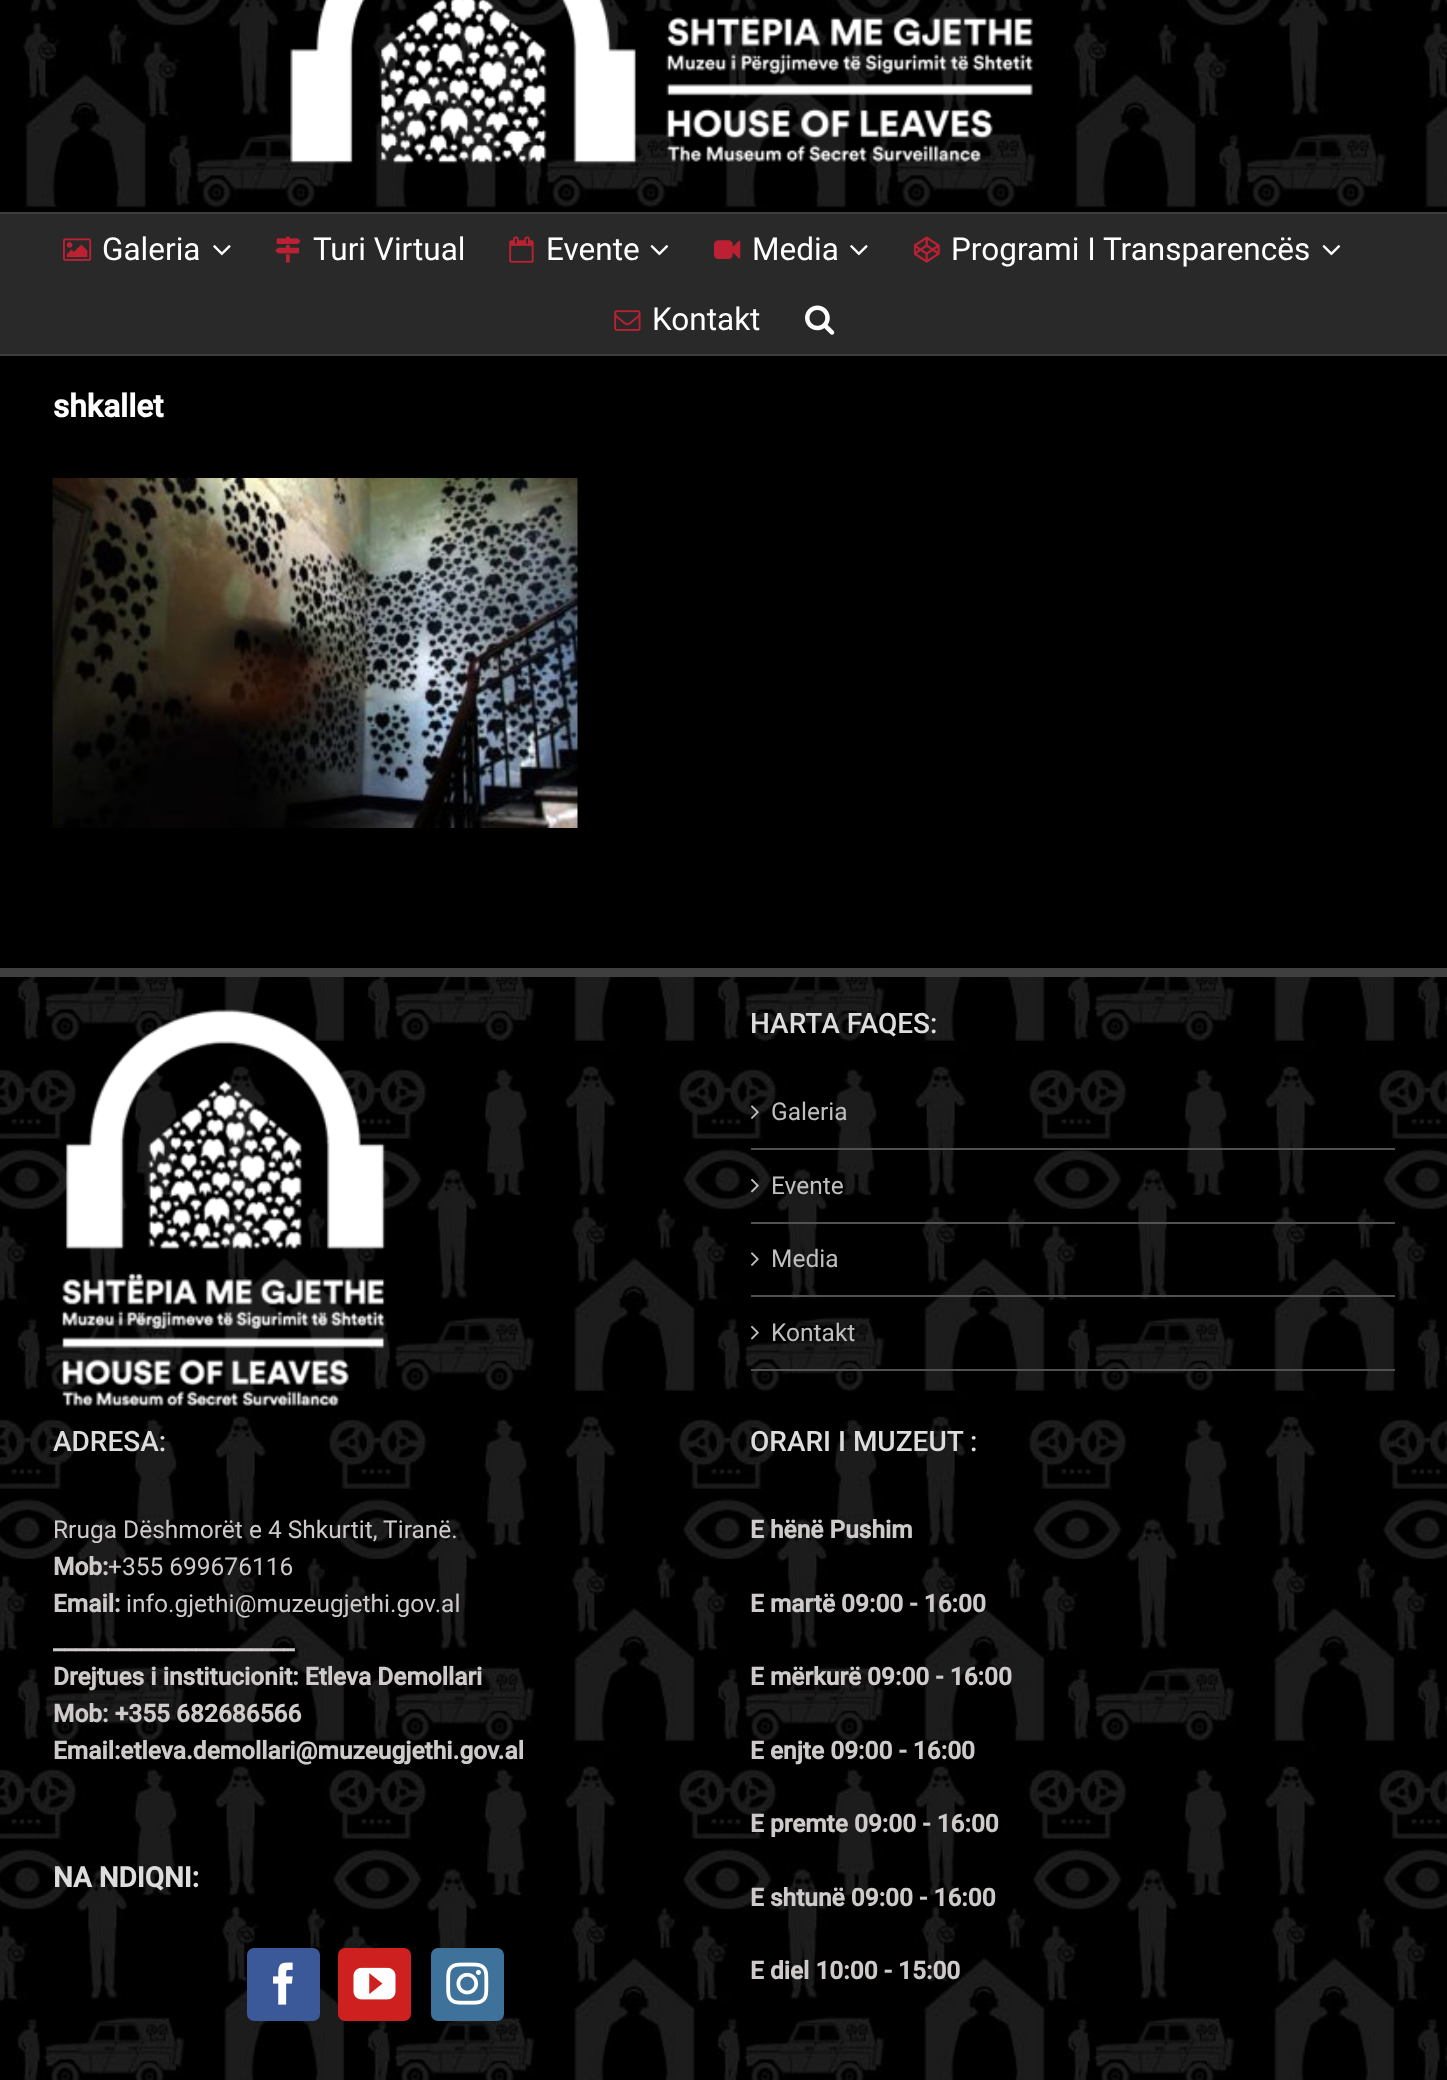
(async () => {
const canvas = document.querySelector("canvas")
canvas.width = 1447
canvas.height = 2080
const c = canvas.getContext("2d")
c.miterLimit = 4
c.fontKerning = "normal"
function T(s,x,y){c.fillText(s,x,y)}
function R(x,y,w,h){c.fillRect(x,y,w,h)}
async function I(src,x,y,w,h){const img=new Image();img.src=src;await img.decode();c.drawImage(img,x,y,w,h)}
c.fillStyle="#000"
R(0,0,1447,2080)
await I("1.png",22,0,1425,208)
c.fillStyle="#3e3e3e"
R(0,212,1447,2)
await I("2.png",290,0,743,164)
c.fillStyle="#29292a"
R(0,214,1447,140)
c.fillStyle="#3e3e3e"
R(0,354,1447,2)
await I("3.png",63,238,29,23)
c.font="31.5px Roboto"
c.fillStyle="#fff"
T("Galeria",102,260)
await I("4.png",213,245,18,11)
await I("5.png",275,236,26,27)
T("Turi Virtual",313,260)
await I("6.png",509,236,25,27)
T("Evente",546,260)
await I("7.png",650,245,19,11)
await I("8.png",714,240,27,19)
T("Media",752,260)
await I("4.png",850,245,18,11)
await I("9.png",914,236,26,27)
T("Programi I Transparencës",951,260)
await I("7.png",1322,245,19,11)
await I("10.png",614,310,27,21)
T("Kontakt",652,330)
await I("11.png",805,305,30,30)
c.font="bold 31.5px Roboto"
T("shkallet",53,417)
await I("12.png",52,478,526,350)
await I("13.png",0,977,1447,1103)
c.fillStyle="#403f3f"
R(0,968,1447,9)
await I("14.png",61,1009,325,397)
c.font="500 28px Roboto"
c.fillStyle="#ddd"
T("HARTA FAQES:",750,1033)
c.fillStyle="#505152"
R(751,1148,644,2)
await I("15.png",751,1105,8,14)
c.font="24.5px Roboto"
c.fillStyle="#bfbfbf"
T("Galeria",771,1120)
c.fillStyle="#505152"
R(751,1222,644,2)
await I("16.png",751,1178,8,15)
c.fillStyle="#bfbfbf"
T("Evente",771,1194)
c.fillStyle="#505152"
R(751,1295,644,2)
await I("17.png",751,1252,8,14)
c.fillStyle="#bfbfbf"
T("Media",771,1267)
c.fillStyle="#505152"
R(751,1369,644,2)
await I("18.png",751,1325,8,15)
c.fillStyle="#bfbfbf"
T("Kontakt",771,1341)
c.font="500 28px Roboto"
c.fillStyle="#ddd"
T("ADRESA:",53,1451)
c.font="24.5px Roboto"
c.fillStyle="#cecaca"
T("Rruga Dëshmorët e 4 Shkurtit, Tiranë.",53,1538)
c.font="bold 24.5px Roboto"
T("Mob:",53,1575)
c.font="24.5px Roboto"
T("+355 699676116",108,1575)
c.font="bold 24.5px Roboto"
T("Email:",53,1612)
c.font="24.5px Roboto"
T("info.gjethi@muzeugjethi.gov.al",126,1612)
c.font="bold 24.5px Roboto"
T("______________________",53,1649)
T("Drejtues i institucionit: Etleva Demollari",53,1685)
T("Mob: +355 682686566",53,1722)
T("Email:etleva.demollari@muzeugjethi.gov.al",53,1759)
c.font="bold 28px Roboto"
c.fillStyle="#ddd"
T("NA NDIQNI:",53,1887)
c.fillStyle="#3b5998"
c.beginPath()
c.roundRect(248,1949,71,71,6)
c.fill()
c.strokeStyle="#3b5998"
c.lineWidth=2
c.stroke()
await I("19.png",273,1962,20,43)
c.fillStyle="#cd201f"
c.beginPath()
c.roundRect(339,1949,71,71,6)
c.fill()
c.strokeStyle="#cd201f"
c.stroke()
await I("20.png",353,1967,43,33)
c.fillStyle="#3f729b"
c.beginPath()
c.roundRect(432,1949,71,71,6)
c.fill()
c.strokeStyle="#3f729b"
c.stroke()
await I("21.png",446,1962,43,43)
c.font="500 28px Roboto"
c.fillStyle="#ddd"
T("ORARI I MUZEUT :",750,1451)
c.font="bold 24.5px Roboto"
c.fillStyle="#cecaca"
T("E hënë Pushim",750,1538)
T("E martë 09:00 - 16:00",750,1612)
T("E mërkurë 09:00 - 16:00",750,1685)
T("E enjte 09:00 - 16:00",750,1759)
T("E premte 09:00 - 16:00",750,1832)
T("E shtunë 09:00 - 16:00",750,1906)
T("E diel 10:00 - 15:00",750,1979)
})()
